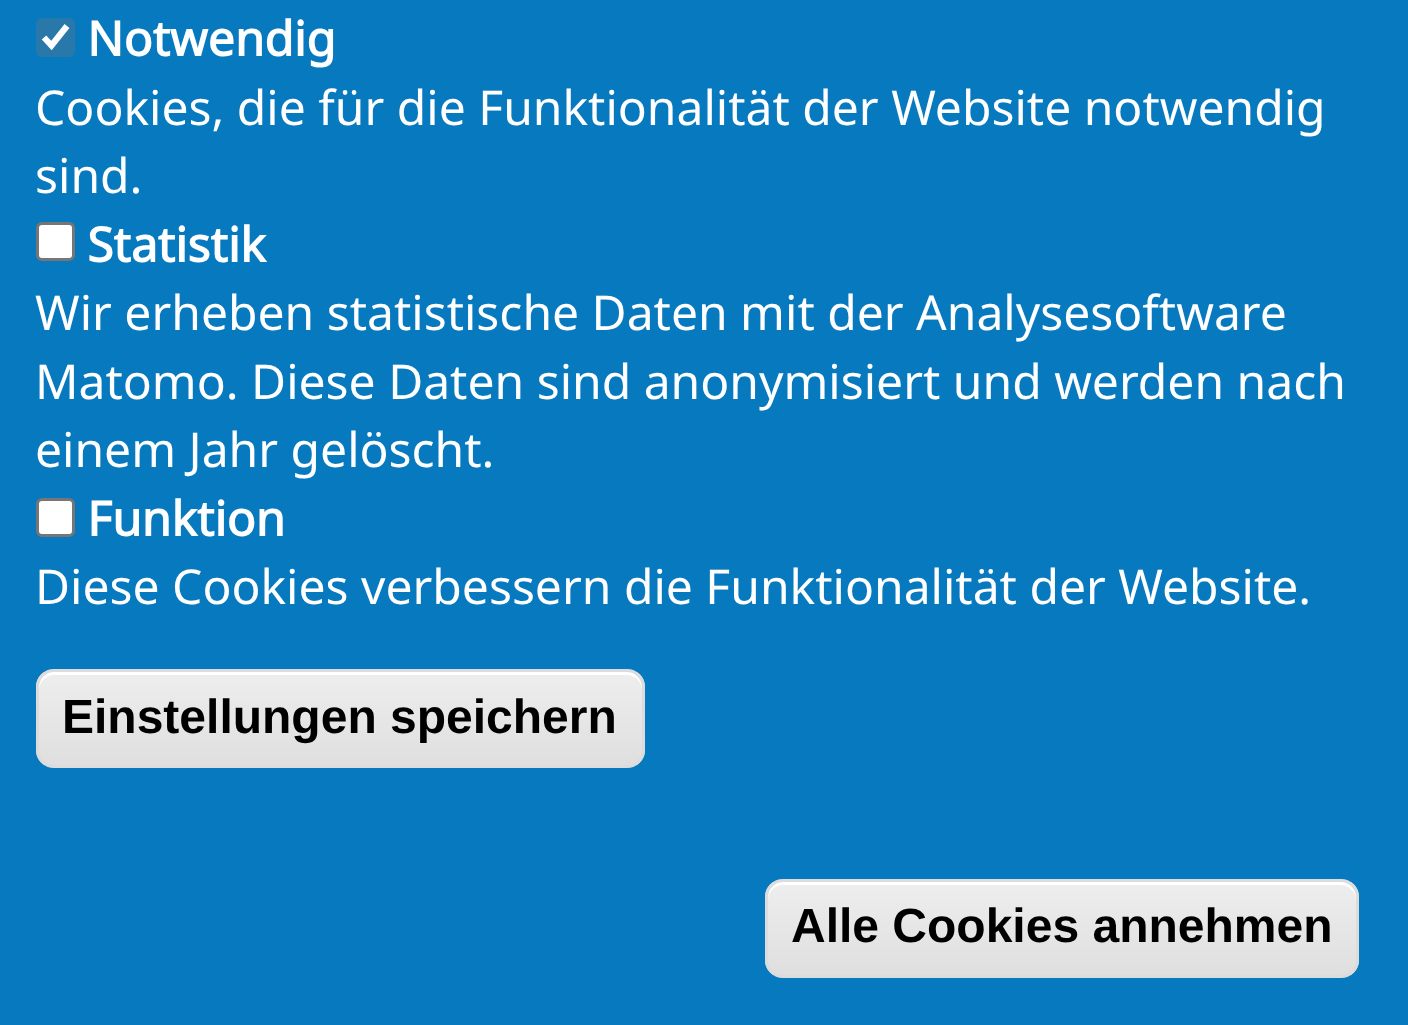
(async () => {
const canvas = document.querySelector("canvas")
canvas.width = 1408
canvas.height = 1025
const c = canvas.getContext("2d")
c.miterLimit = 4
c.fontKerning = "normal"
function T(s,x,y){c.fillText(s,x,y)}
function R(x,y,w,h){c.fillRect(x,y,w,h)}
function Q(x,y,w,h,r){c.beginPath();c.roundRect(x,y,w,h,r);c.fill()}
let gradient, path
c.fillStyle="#0779bf"
R(0,0,1408,1025)
c.fillStyle="#2878a9"
Q(36,18,39,39,6)
path = new Path2D("M44 37.5l7.5 8l15.5-19.5")
c.strokeStyle="#fff"
c.lineWidth=6.2
c.stroke(path)
c.font="bold 48px Noto Sans"
c.fillStyle="#fff"
T("Notwendig",87,56)
c.font="48px Noto Sans"
T("Cookies, die für die Funktionalität der Website notwendig",35,125)
T("sind.",35,193)
c.beginPath()
c.roundRect(37.5,223.5,36,36,4.5)
c.fill()
c.strokeStyle="#767676"
c.lineWidth=3
c.stroke()
c.font="bold 48px Noto Sans"
T("Statistik",87,262)
c.font="48px Noto Sans"
T("Wir erheben statistische Daten mit der Analysesoftware",35,330)
T("Matomo. Diese Daten sind anonymisiert und werden nach",35,399)
T("einem Jahr gelöscht.",35,467)
c.beginPath()
c.roundRect(37.5,499.5,36,36,4.5)
c.fill()
c.stroke()
c.font="bold 48px Noto Sans"
T("Funktion",87,536)
c.font="48px Noto Sans"
T("Diese Cookies verbessern die Funktionalität der Website.",35,604)
c.save()
c.beginPath()
c.roundRect(36,669,609,99,18)
c.clip()
gradient = c.createLinearGradient(341,672,341,765)
gradient.addColorStop(.05,"#ededed")
gradient.addColorStop(1,"#dfdfdf")
c.fillStyle = gradient
R(36,672,609,93)
c.restore()
path = new Path2D("M54 675h573c8 0 15 7 15 15v-3c0-8-7-15-15-15h-573c-8 0-15 7-15 15v3c0-8 7-15 15-15z")
c.fill(path)
c.beginPath()
c.roundRect(37.5,670.5,606,96,16.5)
c.strokeStyle="#dcdcdc"
c.stroke()
c.font="bold 48px Liberation Sans"
c.fillStyle="#000"
T("Einstellungen speichern",62,733)
c.save()
c.beginPath()
c.roundRect(765,879,594,99,18)
c.clip()
gradient = c.createLinearGradient(1062,882,1062,975)
gradient.addColorStop(.05,"#ededed")
gradient.addColorStop(1,"#dfdfdf")
c.fillStyle = gradient
R(765,882,594,93)
c.restore()
c.fillStyle="#fff"
path = new Path2D("M783 885h558c8 0 15 7 15 15v-3c0-8-7-15-15-15h-558c-8 0-15 7-15 15v3c0-8 7-15 15-15z")
c.fill(path)
c.beginPath()
c.roundRect(766.5,880.5,591,96,16.5)
c.stroke()
c.fillStyle="#000"
T("Alle Cookies annehmen",791,942)
})()
